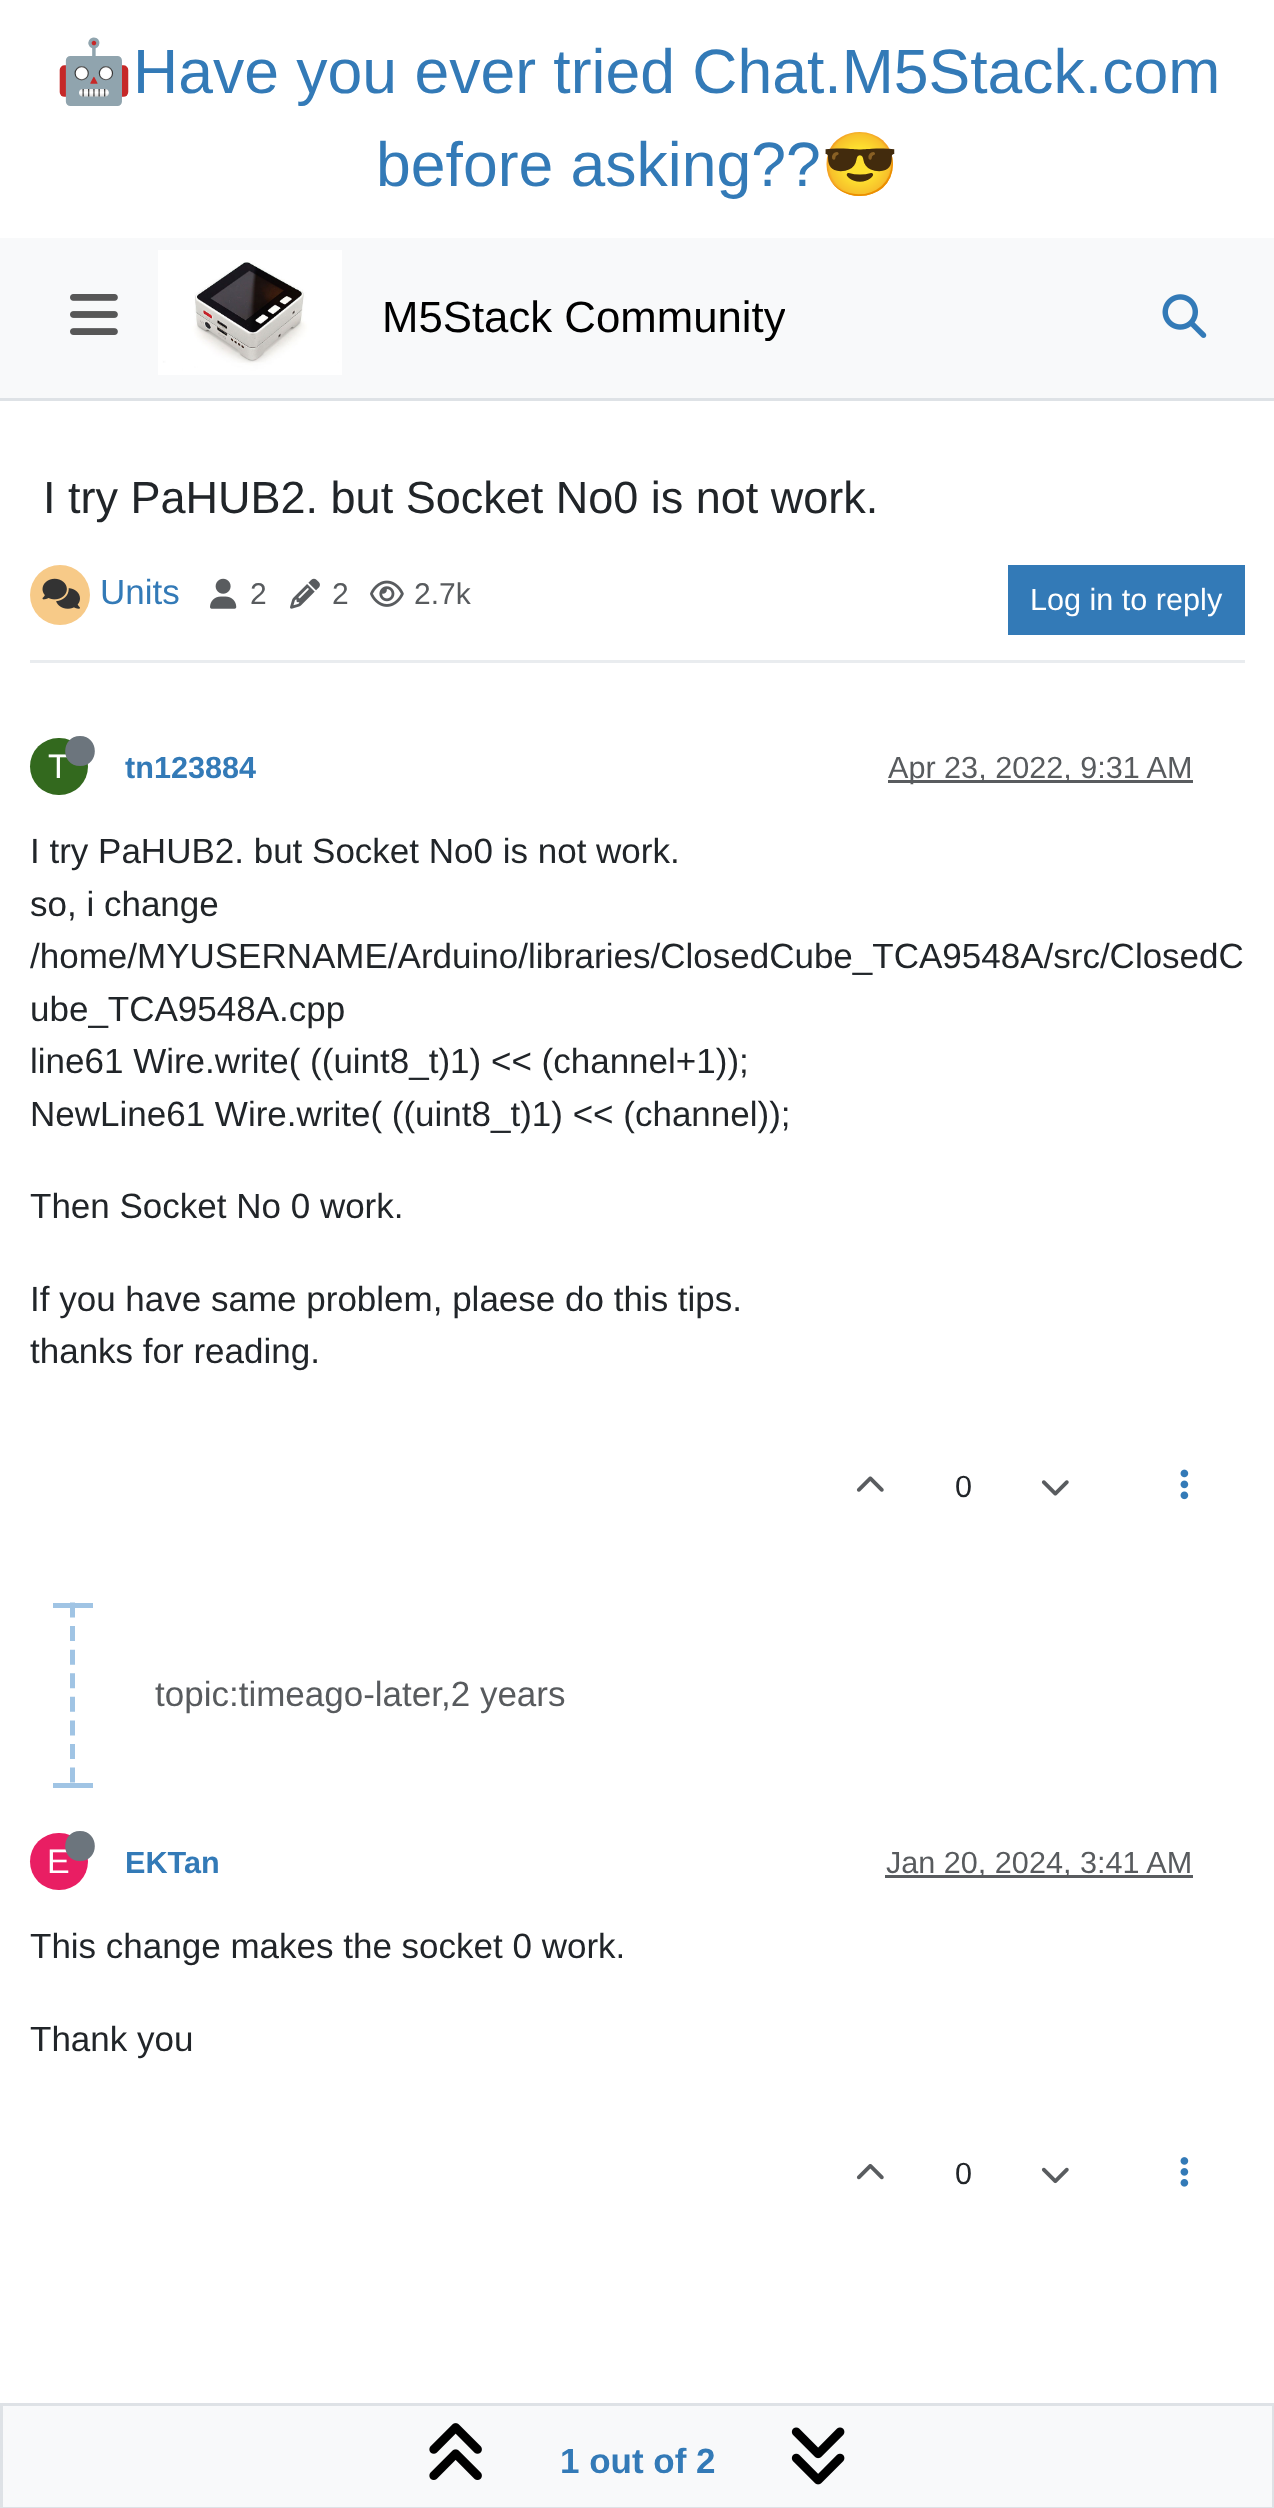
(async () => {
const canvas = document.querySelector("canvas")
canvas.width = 1274
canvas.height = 2508
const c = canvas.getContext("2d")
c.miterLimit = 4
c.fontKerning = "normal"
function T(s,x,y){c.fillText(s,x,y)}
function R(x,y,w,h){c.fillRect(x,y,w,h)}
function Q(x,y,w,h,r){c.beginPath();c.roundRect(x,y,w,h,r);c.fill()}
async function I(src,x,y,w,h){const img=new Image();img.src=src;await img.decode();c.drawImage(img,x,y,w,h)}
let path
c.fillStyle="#fff"
R(0,0,1274,2508)
c.font="62.5px Noto Color Emoji"
c.fillStyle="#337ab7"
T("🤖",55,93)
c.font="62.5px Liberation Sans"
T("Have you ever tried Chat.M5Stack.com",133,93)
T("before asking??",376,186)
c.font="62.5px Noto Color Emoji"
T("😎",821,186)
c.fillStyle="#f8f9fa"
R(0,238,1274,160)
c.fillStyle="#dee2e6"
R(0,398,1274,3)
await I("1.png",70,294,48,41)
await I("2.png",158,250,184,125)
c.save()
c.beginPath()
c.rect(383,273,402,92)
c.clip()
c.font="43.75px Liberation Sans"
c.fillStyle="#000"
T("M5Stack Community",382,332)
c.restore()
await I("3.png",1162,294,45,44)
c.font="45px Liberation Sans"
c.fillStyle="#212529"
T("I try PaHUB2. but Socket No0 is not work.",43,513)
c.fillStyle="#e9ecef"
R(30,660,1215,3)
c.fillStyle="#f7ca88"
c.beginPath()
c.arc(60,595,30,0,7)
c.fill()
await I("4.png",42,578,38,31)
c.font="35px Liberation Sans"
c.fillStyle="#337ab7"
T("Units",100,604)
await I("5.png",210,578,27,31)
c.font="30px Liberation Sans"
c.fillStyle="#585b5e"
T("2",250,604)
await I("6.png",290,578,30,31)
T("2",332,604)
await I("7.png",370,580,34,27)
T("2.7k",414,604)
c.fillStyle="#337ab7"
R(1008,565,237,70)
c.font="30.6px Liberation Sans"
c.fillStyle="#fff"
T("Log in to reply",1030,610)
c.fillStyle="#33691e"
Q(30,738,58,57,28.5)
c.font="34px Liberation Sans"
c.fillStyle="#fff"
T("T",48,778)
c.fillStyle="#6c757d"
path = new Path2D("M80 766c20 0 19.5-30 0-30c-19.5 0-20 30 0 30z")
c.fill(path)
c.font="bold 30.6px Liberation Sans"
c.fillStyle="#337ab7"
T("tn123884",125,778)
c.fillStyle="#595c5f"
R(888,780,305,3)
c.font="30.6px Liberation Sans"
c.fillStyle="#585b5e"
T("Apr 23, 2022, 9:31 AM",888,778)
c.font="35px Liberation Sans"
c.fillStyle="#212529"
T("I try PaHUB2. but Socket No0 is not work.",30,863)
T("so, i change",30,916)
T("/home/MYUSERNAME/Arduino/libraries/ClosedCube_TCA9548A/src/ClosedC",30,968)
T("ube_TCA9548A.cpp",30,1021)
T("line61 Wire.write( ((uint8_t)1) << (channel+1));",30,1073)
T("NewLine61 Wire.write( ((uint8_t)1) << (channel));",30,1126)
T("Then Socket No 0 work.",30,1218)
T("If you have same problem, plaese do this tips.",30,1311)
T("thanks for reading.",30,1363)
await I("8.png",856,1476,28,16)
c.font="30.6px Liberation Sans"
T("0",955,1497)
await I("9.png",1041,1480,28,16)
await I("10.png",1180,1469,9,31)
path = new Path2D("M72.5 1602.5v180")
c.strokeStyle="#a0c4e4"
c.lineWidth=5
c.setLineDash([15,8.58])
c.stroke(path)
c.fillStyle="#a0c4e4"
R(53,1603,40,5)
c.font="35px Liberation Sans"
c.fillStyle="#585b5e"
T("topic:timeago-later,2 years",155,1706)
c.fillStyle="#a0c4e4"
R(53,1783,40,5)
c.fillStyle="#e91e63"
Q(30,1833,58,57,28.5)
c.font="34px Liberation Sans"
c.fillStyle="#fff"
T("E",47,1873)
c.fillStyle="#6c757d"
path = new Path2D("M80 1861c20 0 19.5-30 0-30c-19.5 0-20 30 0 30z")
c.fill(path)
c.font="bold 30.6px Liberation Sans"
c.fillStyle="#337ab7"
T("EKTan",125,1873)
c.fillStyle="#595c5f"
R(885,1875,308,3)
c.font="30.6px Liberation Sans"
c.fillStyle="#585b5e"
T("Jan 20, 2024, 3:41 AM",886,1873)
c.font="35px Liberation Sans"
c.fillStyle="#212529"
T("This change makes the socket 0 work.",30,1958)
T("Thank you",30,2051)
await I("11.png",856,2164,28,16)
c.font="30.6px Liberation Sans"
T("0",955,2184)
await I("12.png",1041,2167,28,17)
await I("13.png",1180,2157,9,30)
c.fillStyle="#f8f9fa"
c.beginPath()
c.rect(1.5,2404.5,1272,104)
c.fill()
c.strokeStyle="#dee2e6"
c.lineWidth=3
c.setLineDash([])
c.stroke()
await I("14.png",429,2423,53,57)
c.font="bold 35px Liberation Sans"
c.fillStyle="#337ab7"
T("1 out of 2",560,2473)
await I("15.png",791,2427,54,58)
})()
